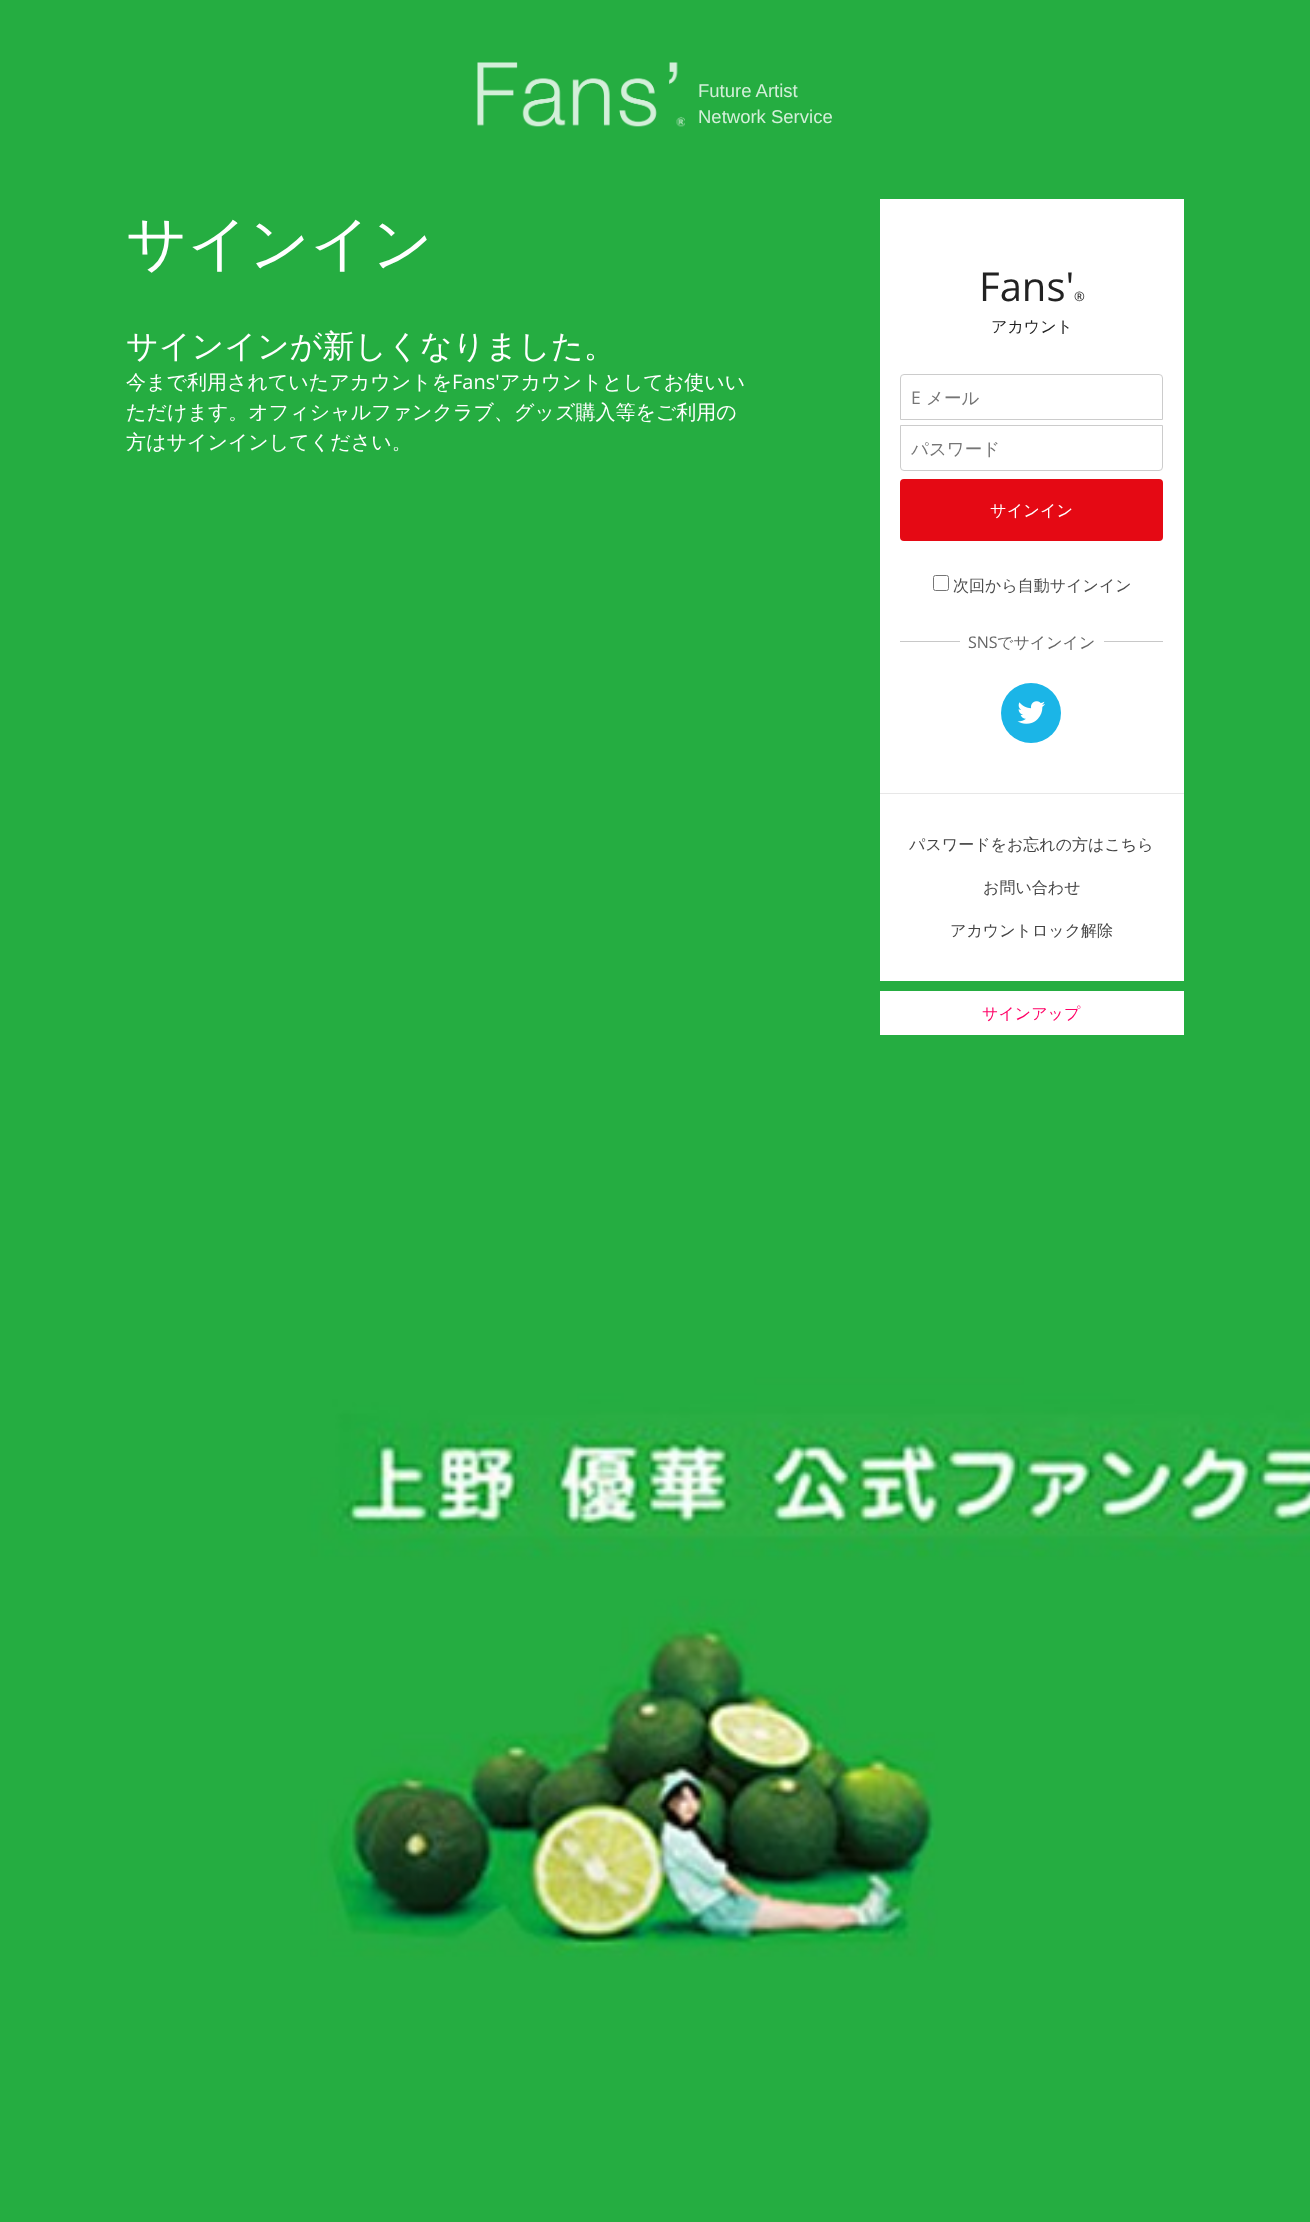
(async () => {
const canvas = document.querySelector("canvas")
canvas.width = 1310
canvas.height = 2222
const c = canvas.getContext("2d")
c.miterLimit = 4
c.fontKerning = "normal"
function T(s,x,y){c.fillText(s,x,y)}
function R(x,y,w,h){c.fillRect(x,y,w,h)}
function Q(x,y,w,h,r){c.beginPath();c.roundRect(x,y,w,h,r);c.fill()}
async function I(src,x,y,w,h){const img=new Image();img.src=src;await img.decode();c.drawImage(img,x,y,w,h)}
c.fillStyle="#fff"
R(0,0,1310,2222)
await I("1.png",0,0,1310,2222)
await I("2.png",477,62,208,65)
c.font="18.5px Liberation Sans"
c.fillStyle="#d3efd9"
T("Future Artist",698,97)
T("Network Service",698,123)
c.font="500 60px WenQuanYi Zen Hei"
c.fillStyle="#fff"
T("サインイン",126,264)
c.font="500 32px WenQuanYi Zen Hei"
T("サインインが新しくなりました。",126,357)
c.font="500 20px WenQuanYi Zen Hei"
T("今まで利用されていたアカウントを",126,389)
c.font="20px Open Sans"
T("Fans'",452,389)
c.font="500 20px WenQuanYi Zen Hei"
T("アカウントとしてお使いい",500,389)
T("ただけます。オフィシャルファンクラブ、グッズ購入等をご利用の",126,419)
T("方はサインインしてください。",126,449)
R(880,199,304,782)
c.font="40px Open Sans"
c.fillStyle="#222"
T("Fans'",979,301)
c.letterSpacing="-1px"
c.font="13px Open Sans"
T("®",1074,301)
c.letterSpacing="0px"
c.font="500 16px WenQuanYi Zen Hei"
T("アカウント",991,332)
c.beginPath()
c.roundRect(900.5,374.5,262,45,[3.5,3.5,0,0])
c.strokeStyle="#ccc"
c.stroke()
c.font="17.5px Open Sans"
c.fillStyle="#757575"
T("E",911,404)
c.font="500 17.5px WenQuanYi Zen Hei"
T("メール",926,404)
c.beginPath()
c.roundRect(900.5,425.5,262,45,[0,0,3.5,3.5])
c.stroke()
T("パスワード",911,455)
c.fillStyle="#e50914"
Q(900,479,263,62,4)
c.font="500 16.25px WenQuanYi Zen Hei"
c.fillStyle="#fff"
T("サインイン",990,516)
c.beginPath()
c.roundRect(933.5,575.5,15,15,2)
c.strokeStyle="#767676"
c.stroke()
c.font="500 16px WenQuanYi Zen Hei"
c.fillStyle="#4d4d4d"
T("次回から自動サインイン",953,591)
c.fillStyle="#c8c8c8"
R(900,641,60,1)
c.font="16px Open Sans"
c.fillStyle="#666"
T("SNS",968,648)
c.font="500 16px WenQuanYi Zen Hei"
T("でサインイン",997,648)
c.fillStyle="#c8c8c8"
R(1104,641,59,1)
c.fillStyle="#1bb5e7"
c.beginPath()
c.arc(1031,713,30,0,7)
c.fill()
await I("3.png",1017,701,28,23)
c.fillStyle="#e7e7e7"
R(880,793,304,1)
c.fillStyle="#444"
T("パスワードをお忘れの方はこちら",909,850)
T("お問い合わせ",983,893)
T("アカウントロック解除",950,936)
c.fillStyle="#fff"
R(880,991,304,44)
c.fillStyle="#f06"
T("サインアップ",982,1019)
})()
